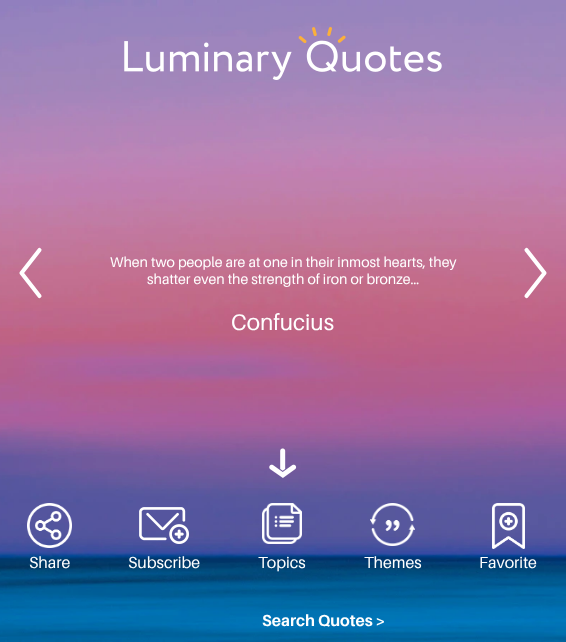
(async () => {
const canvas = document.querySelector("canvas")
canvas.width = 566
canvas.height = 642
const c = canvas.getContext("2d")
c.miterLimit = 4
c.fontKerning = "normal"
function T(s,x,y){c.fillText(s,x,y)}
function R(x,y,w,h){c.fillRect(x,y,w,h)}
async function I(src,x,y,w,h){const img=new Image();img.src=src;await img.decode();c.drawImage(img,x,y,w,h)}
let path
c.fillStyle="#fff"
R(0,0,566,642)
await I("1.png",0,0,566,642)
await I("2.png",124,27,318,53)
path = new Path2D("M39.5 250l-18 23l18 23")
c.strokeStyle="#fff"
c.lineWidth=4.1
c.lineCap="round"
c.lineJoin="round"
c.stroke(path)
c.font="14.15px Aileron"
T("When two people are at one in their inmost hearts, they",110,267)
T("shatter even the strength of iron or bronze…",147,284)
c.font="22.5px Aileron"
T("Confucius",231,330)
path = new Path2D("M526.5 250l18 23l-18 23")
c.stroke(path)
await I("3.png",269,448,28,30)
await I("4.png",27,503,45,45)
c.font="16px Aileron"
T("Share",29,568)
await I("5.png",139,507,50,37)
T("Subscribe",128,568)
await I("6.png",262,503,40,41)
T("Topics",258,568)
await I("7.png",370,503,45,43)
T("Themes",364,568)
await I("8.png",492,503,33,46)
T("Favorite",479,568)
c.font="bold 16px Aileron"
T("Search Quotes >",262,626)
})()
